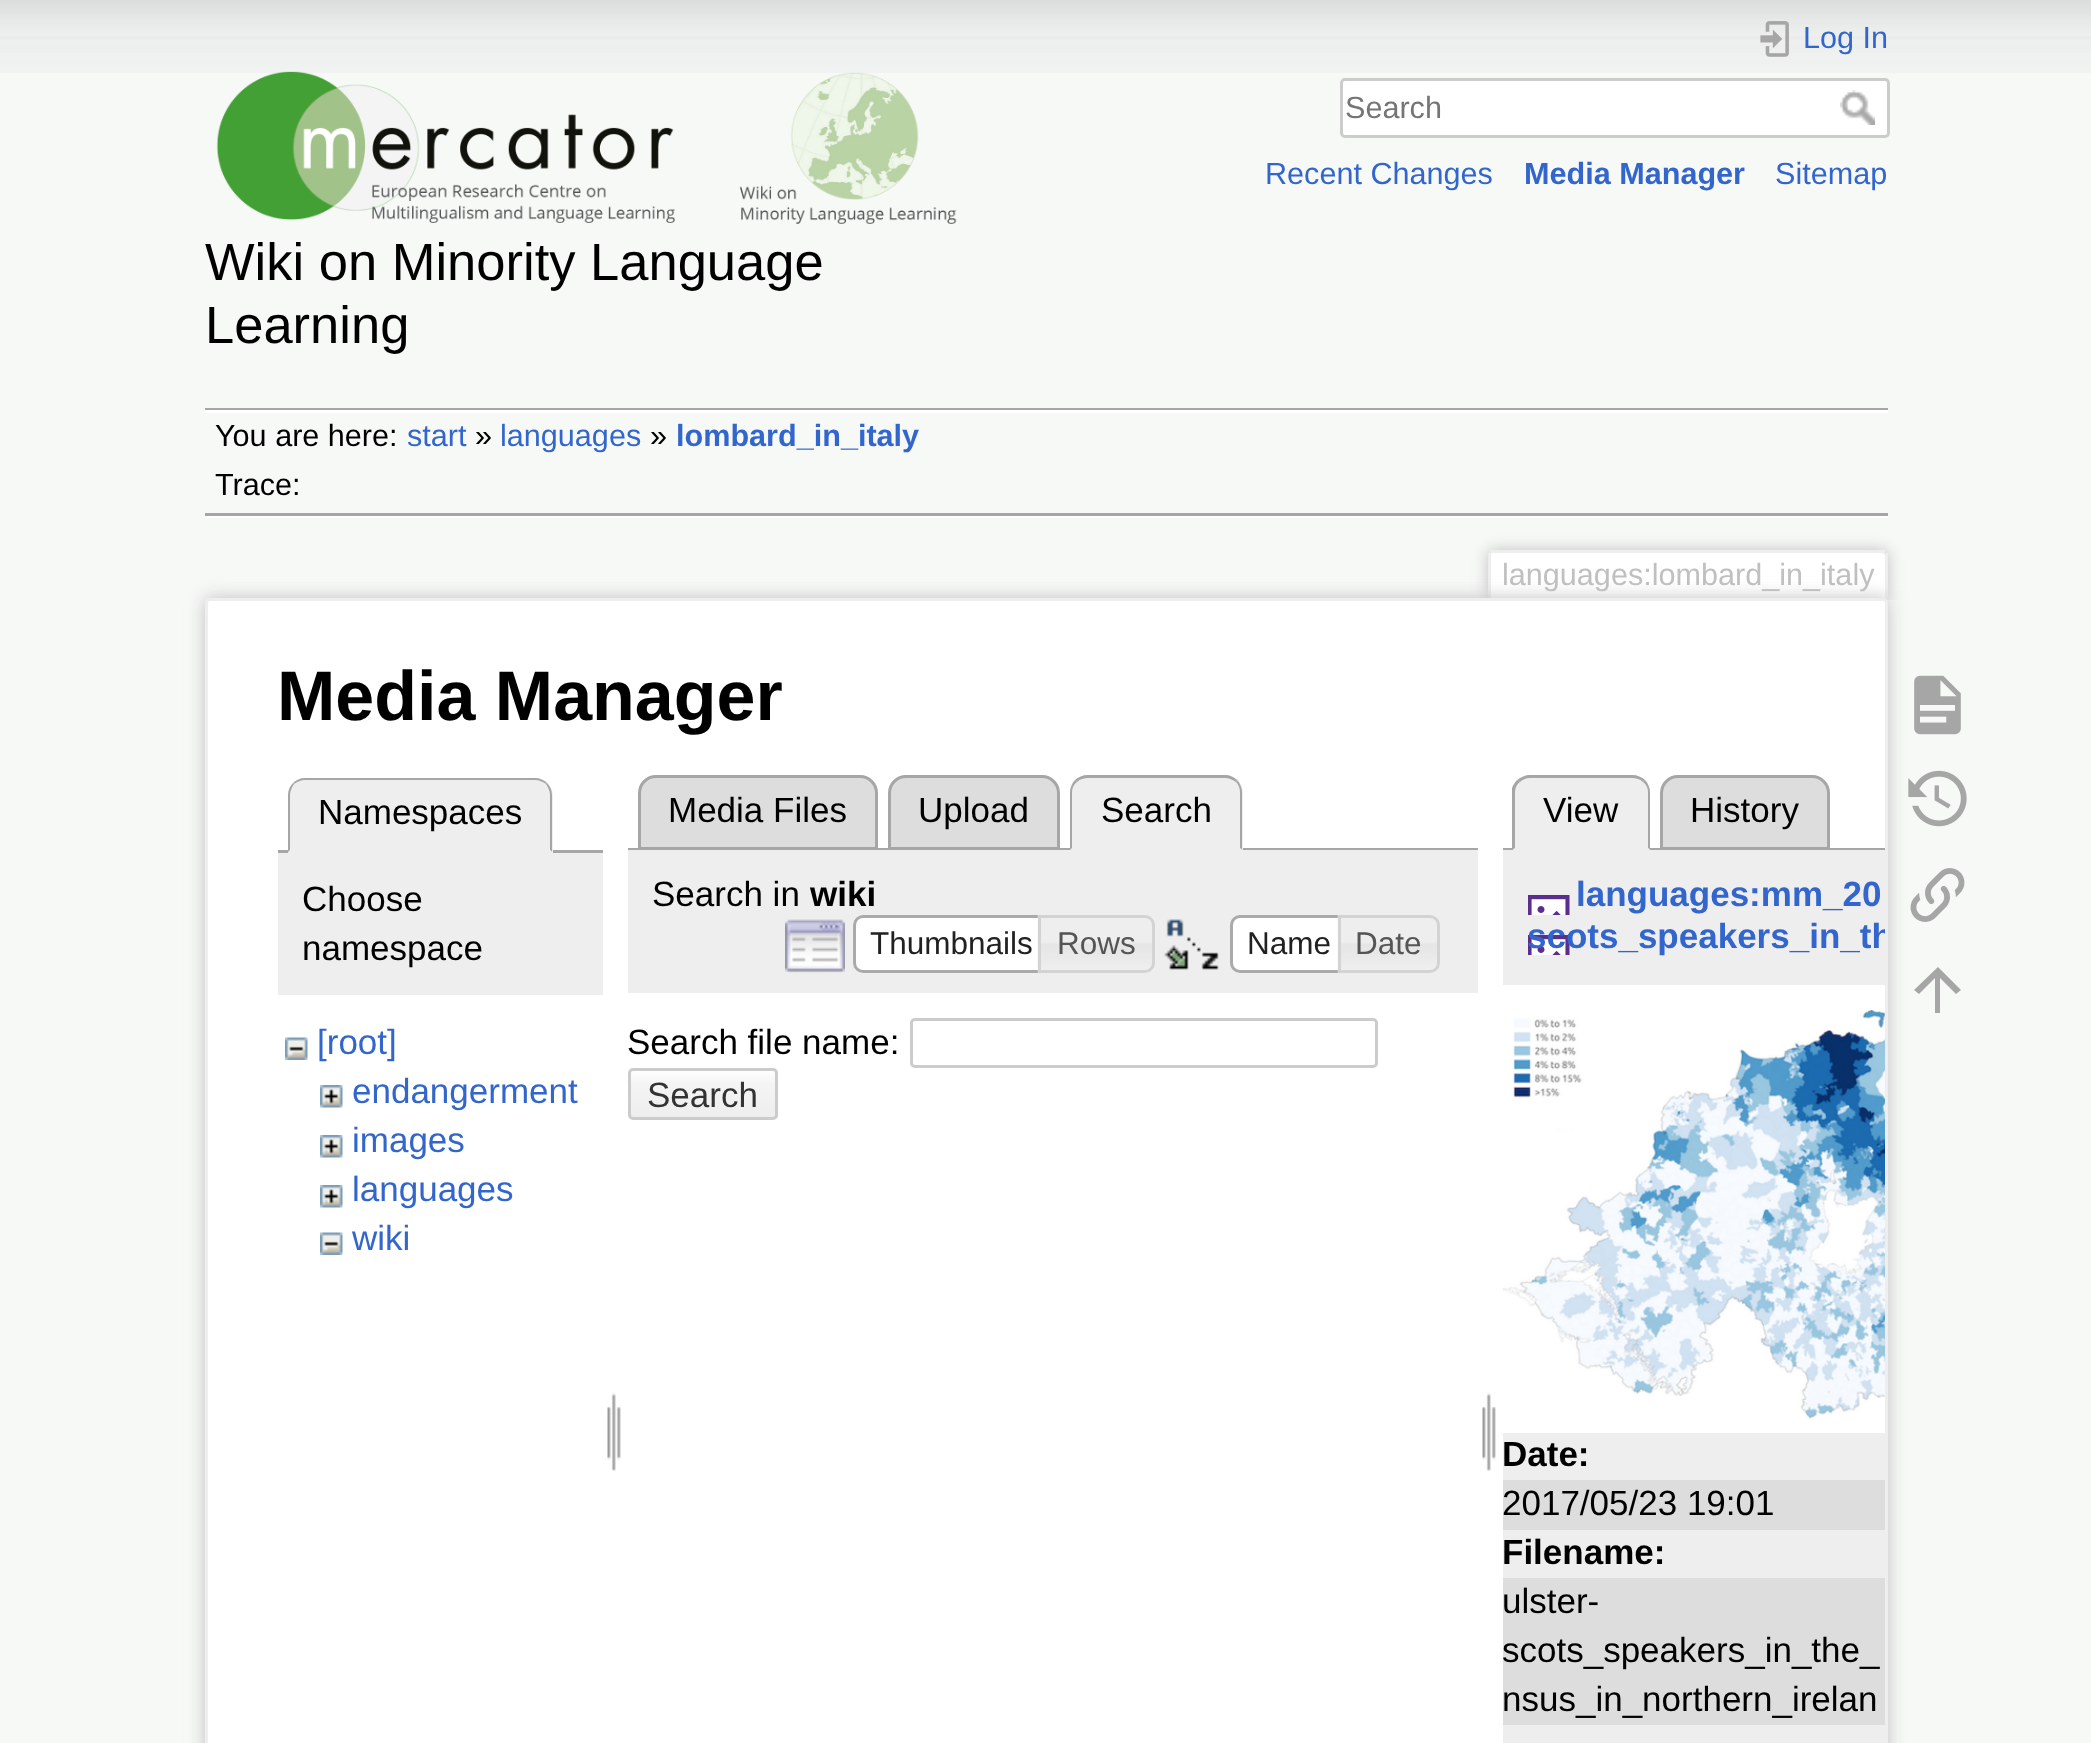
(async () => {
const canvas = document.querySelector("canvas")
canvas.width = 2091
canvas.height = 1743
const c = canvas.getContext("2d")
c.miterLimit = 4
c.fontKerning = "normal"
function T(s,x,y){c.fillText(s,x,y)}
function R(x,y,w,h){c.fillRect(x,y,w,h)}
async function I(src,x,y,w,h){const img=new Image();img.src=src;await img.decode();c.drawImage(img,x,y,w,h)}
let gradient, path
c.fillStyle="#f7f9f7"
R(0,0,2091,1743)
await I("1.png",0,0,2091,73)
await I("2.png",1760,21,29,36)
c.font="30.6px Liberation Sans"
c.fillStyle="#36c"
T("Log In",1803,48)
c.fillStyle="#fff"
c.beginPath()
c.roundRect(1341.5,79.5,547,57,3.5)
c.fill()
c.strokeStyle="#ccc"
c.lineWidth=3
c.stroke()
c.fillStyle="#757575"
T("Search",1345,118)
await I("3.png",1840,90,35,35)
c.fillStyle="#36c"
T("Recent Changes",1265,184)
c.font="bold 30.6px Liberation Sans"
T("Media Manager",1524,184)
c.font="30.6px Liberation Sans"
T("Sitemap",1775,184)
await I("4.png",216,71,741,153)
c.font="52.5px Liberation Sans"
c.fillStyle="#000"
T("Wiki on Minority Language",205,280)
T("Learning",205,343)
c.fillStyle="#a6a6a6"
R(205,408,1683,2)
c.fillStyle="#fff"
R(205,516,1683,2)
R(205,410,1683,3)
c.font="30.6px Liberation Sans"
c.fillStyle="#000"
T("You are here:",215,446)
c.fillStyle="#36c"
T("start",407,446)
c.fillStyle="#000"
T("»",475,446)
c.fillStyle="#36c"
T("languages",500,446)
c.fillStyle="#000"
T("»",650,446)
c.font="bold 30.6px Liberation Sans"
c.fillStyle="#36c"
T("lombard_in_italy",676,446)
c.fillStyle="#a6a6a6"
R(205,513,1683,3)
c.font="30.6px Liberation Sans"
c.fillStyle="#000"
T("Trace:",215,495)
c.save()
c.beginPath()
c.rect(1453,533,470,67)
c.clip()
c.fillStyle="#c0c0c0"
c.filter="blur(7.5px)"
c.beginPath()
c.roundRect(1488,550,400,50,5)
c.fill()
c.filter="none"
c.restore()
c.fillStyle="#fff"
c.beginPath()
c.roundRect(1490,553,395,47,[2.5,2.5,0,0])
c.fill()
c.fillStyle="#eee"
R(1490,550,395,3)
R(1885,553,3,47)
R(1488,553,3,47)
c.fillStyle="#c0c0c0"
T("languages:lombard_in_italy",1502,585)
c.filter="blur(9px)"
c.beginPath()
c.roundRect(205,598,1683,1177,5)
c.fill()
c.filter="none"
c.fillStyle="#fff"
c.beginPath()
c.roundRect(206.5,599.5,1680,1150,3.5)
c.fill()
c.strokeStyle="#eee"
c.stroke()
c.font="bold 70px Liberation Sans"
c.fillStyle="#000"
T("Media Manager",277,720)
c.fillStyle="#a6a6a6"
R(278,850,325,3)
c.fillStyle="#eee"
c.beginPath()
c.roundRect(288,778,265,75,[18,18,0,0])
c.fill()
c.fillStyle="#a6a6a6"
path = new Path2D("M305 778c-5 0-9 2-12 5l1 1c3-2 7-4 11-4h230c4 0 8 2 11 4l1-1c-3-3-7-5-12-5z")
c.fill(path)
path = new Path2D("M552 852v-57c0-5-2-9-5-12l-1 1c2 3 4 7 4 11v55z")
c.fill(path)
c.fillStyle="#eee"
path = new Path2D("M552 852l-2-2h-260l-2 2z")
c.fill(path)
c.fillStyle="#a6a6a6"
path = new Path2D("M293 783c-3 3-5 7-5 12v57l2-2v-55c0-4 2-8 4-11z")
c.fill(path)
c.font="35px Liberation Sans"
c.fillStyle="#000"
T("Namespaces",318,824)
c.fillStyle="#eee"
R(278,853,325,142)
c.fillStyle="#000"
T("Choose",302,911)
T("namespace",302,960)
await I("5.png",285,1037,23,23)
c.fillStyle="#36c"
T("[root]",317,1054)
await I("6.png",320,1085,23,23)
T("endangerment",352,1103)
await I("6.png",320,1135,23,23)
T("images",352,1152)
await I("6.png",320,1185,23,23)
T("languages",352,1201)
await I("7.png",320,1232,23,23)
T("wiki",352,1250)
await I("8.png",607,1392,14,79)
c.fillStyle="#ddd"
c.beginPath()
c.roundRect(639.5,776.5,237,72,[16.5,16.5,0,0])
c.fill()
c.strokeStyle="#a6a6a6"
c.stroke()
c.fillStyle="#000"
T("Media Files",668,822)
c.fillStyle="#ddd"
c.beginPath()
c.roundRect(889.5,776.5,169,72,[16.5,16.5,0,0])
c.fill()
c.stroke()
c.fillStyle="#000"
T("Upload",918,822)
c.fillStyle="#a6a6a6"
R(628,848,850,2)
c.fillStyle="#eee"
c.beginPath()
c.roundRect(1070,775,173,75,[18,18,0,0])
c.fill()
c.fillStyle="#a6a6a6"
path = new Path2D("M1088 775c-5 0-10 2-13 5l2 2c3-3 7-4 11-4h137c4 0 8 2 11 4l1-2c-3-3-7-5-12-5z")
c.fill(path)
path = new Path2D("M1237 780c3 3 5 8 5 12v58l-2-2v-56c0-4-2-8-4-10z")
c.fill(path)
c.fillStyle="#eee"
path = new Path2D("M1242 850l-2-2h-168l-2 2z")
c.fill(path)
c.fillStyle="#a6a6a6"
path = new Path2D("M1070 850l2-2v-56c0-4 2-8 5-10l-2-2c-3 3-5 8-5 12z")
c.fill(path)
c.fillStyle="#000"
T("Search",1101,822)
c.fillStyle="#eee"
R(628,850,850,143)
c.fillStyle="#000"
T("Search in",652,906)
c.font="bold 35px Liberation Sans"
T("wiki",810,906)
await I("9.png",785,919,60,54)
c.fillStyle="#fff"
c.beginPath()
c.roundRect(853,915,197,58,[10,0,0,10])
c.fill()
await I("10.png",852,915,8,55)
c.beginPath()
c.roundRect(854.5,916.5,194,55,[8.5,0,0,8.5])
c.strokeStyle="#aaa"
c.stroke()
c.font="31.5px Liberation Sans"
c.fillStyle="#212121"
T("Thumbnails",870,954)
await I("11.png",1037,915,118,58)
c.beginPath()
c.roundRect(1039.5,916.5,114,55,[0,8.5,8.5,0])
c.strokeStyle="#d3d3d3"
c.stroke()
c.fillStyle="#555"
T("Rows",1057,954)
await I("12.png",1164,919,55,51)
c.fillStyle="#fff"
c.beginPath()
c.roundRect(1231.5,916.5,117,55,[8.5,0,0,8.5])
c.fill()
c.strokeStyle="#aaa"
c.stroke()
c.fillStyle="#212121"
T("Name",1247,954)
await I("13.png",1337,915,103,58)
c.beginPath()
c.roundRect(1339.5,916.5,99,55,[0,8.5,8.5,0])
c.strokeStyle="#d3d3d3"
c.stroke()
c.fillStyle="#555"
T("Date",1355,954)
c.font="35px Liberation Sans"
c.fillStyle="#000"
T("Search file name:",627,1054)
c.beginPath()
c.roundRect(911.5,1019.5,465,47,3.5)
c.strokeStyle="#ccc"
c.stroke()
c.save()
c.beginPath()
c.roundRect(628,1068,150,52,5)
c.clip()
gradient = c.createLinearGradient(703,1070,703,1118)
gradient.addColorStop(0,"#fff")
gradient.addColorStop(.3,"#f4f4f4")
gradient.addColorStop(.99,"#eee")
gradient.addColorStop(.99,"#ccc")
c.fillStyle = gradient
R(628,1070,150,48)
c.restore()
c.beginPath()
c.roundRect(629.5,1069.5,147,49,3.5)
c.stroke()
c.fillStyle="#333"
T("Search",647,1107)
await I("8.png",1482,1392,14,79)
c.fillStyle="#ddd"
c.beginPath()
c.roundRect(1661.5,776.5,167,72,[16.5,16.5,0,0])
c.fill()
c.strokeStyle="#a6a6a6"
c.stroke()
c.fillStyle="#a6a6a6"
R(1503,848,382,2)
c.fillStyle="#eee"
c.beginPath()
c.roundRect(1513,775,137,75,[18,18,0,0])
c.fill()
c.fillStyle="#a6a6a6"
path = new Path2D("M1530 775c-5 0-9 2-13 5l3 2c2-2 6-4 10-4h102c4 0 8 1 11 4l2-2c-3-3-8-5-13-5z")
c.fill(path)
path = new Path2D("M1650 850v-58c0-4-2-9-5-12l-2 2c3 2 5 6 5 10v56z")
c.fill(path)
c.fillStyle="#eee"
path = new Path2D("M1650 850l-2-2h-133l-3 2z")
c.fill(path)
c.fillStyle="#a6a6a6"
path = new Path2D("M1512 850v-62c1-3 3-6 5-8l3 2c-3 2-5 6-5 10v56z")
c.fill(path)
c.fillStyle="#000"
T("View",1543,822)
T("History",1690,822)
c.fillStyle="#eee"
R(1503,850,382,135)
await I("14.png",1528,895,42,60)
c.font="bold 35px Liberation Sans"
c.fillStyle="#36c"
T("languages:mm_20",1576,906)
c.save()
c.beginPath()
c.rect(1503,850,382,135)
c.clip()
T("scots_speakers_in_th",1527,948)
c.restore()
await I("15.png",1502,1010,383,409)
c.fillStyle="#eee"
R(1503,1433,382,47)
c.fillStyle="#000"
T("Date:",1502,1466)
c.fillStyle="#ddd"
R(1503,1480,382,50)
c.font="35px Liberation Sans"
c.fillStyle="#000"
T("2017/05/23 19:01",1502,1515)
c.fillStyle="#eee"
R(1503,1530,382,48)
c.font="bold 35px Liberation Sans"
c.fillStyle="#000"
T("Filename:",1502,1564)
c.fillStyle="#ddd"
R(1503,1578,382,147)
c.font="35px Liberation Sans"
c.fillStyle="#000"
T("ulster-",1502,1613)
T("scots_speakers_in_the_",1502,1662)
T("nsus_in_northern_irelan",1502,1711)
c.fillStyle="#eee"
R(1503,1725,382,18)
await I("16.png",1914,675,47,60)
await I("17.png",1908,770,59,57)
await I("18.png",1910,868,55,54)
c.fillStyle="#a6a6a6"
path = new Path2D("M1940 1013h-5v-35l-16 16l-5-4l24-23l23 23l-5 4l-16-16z")
c.fill(path)
})()
